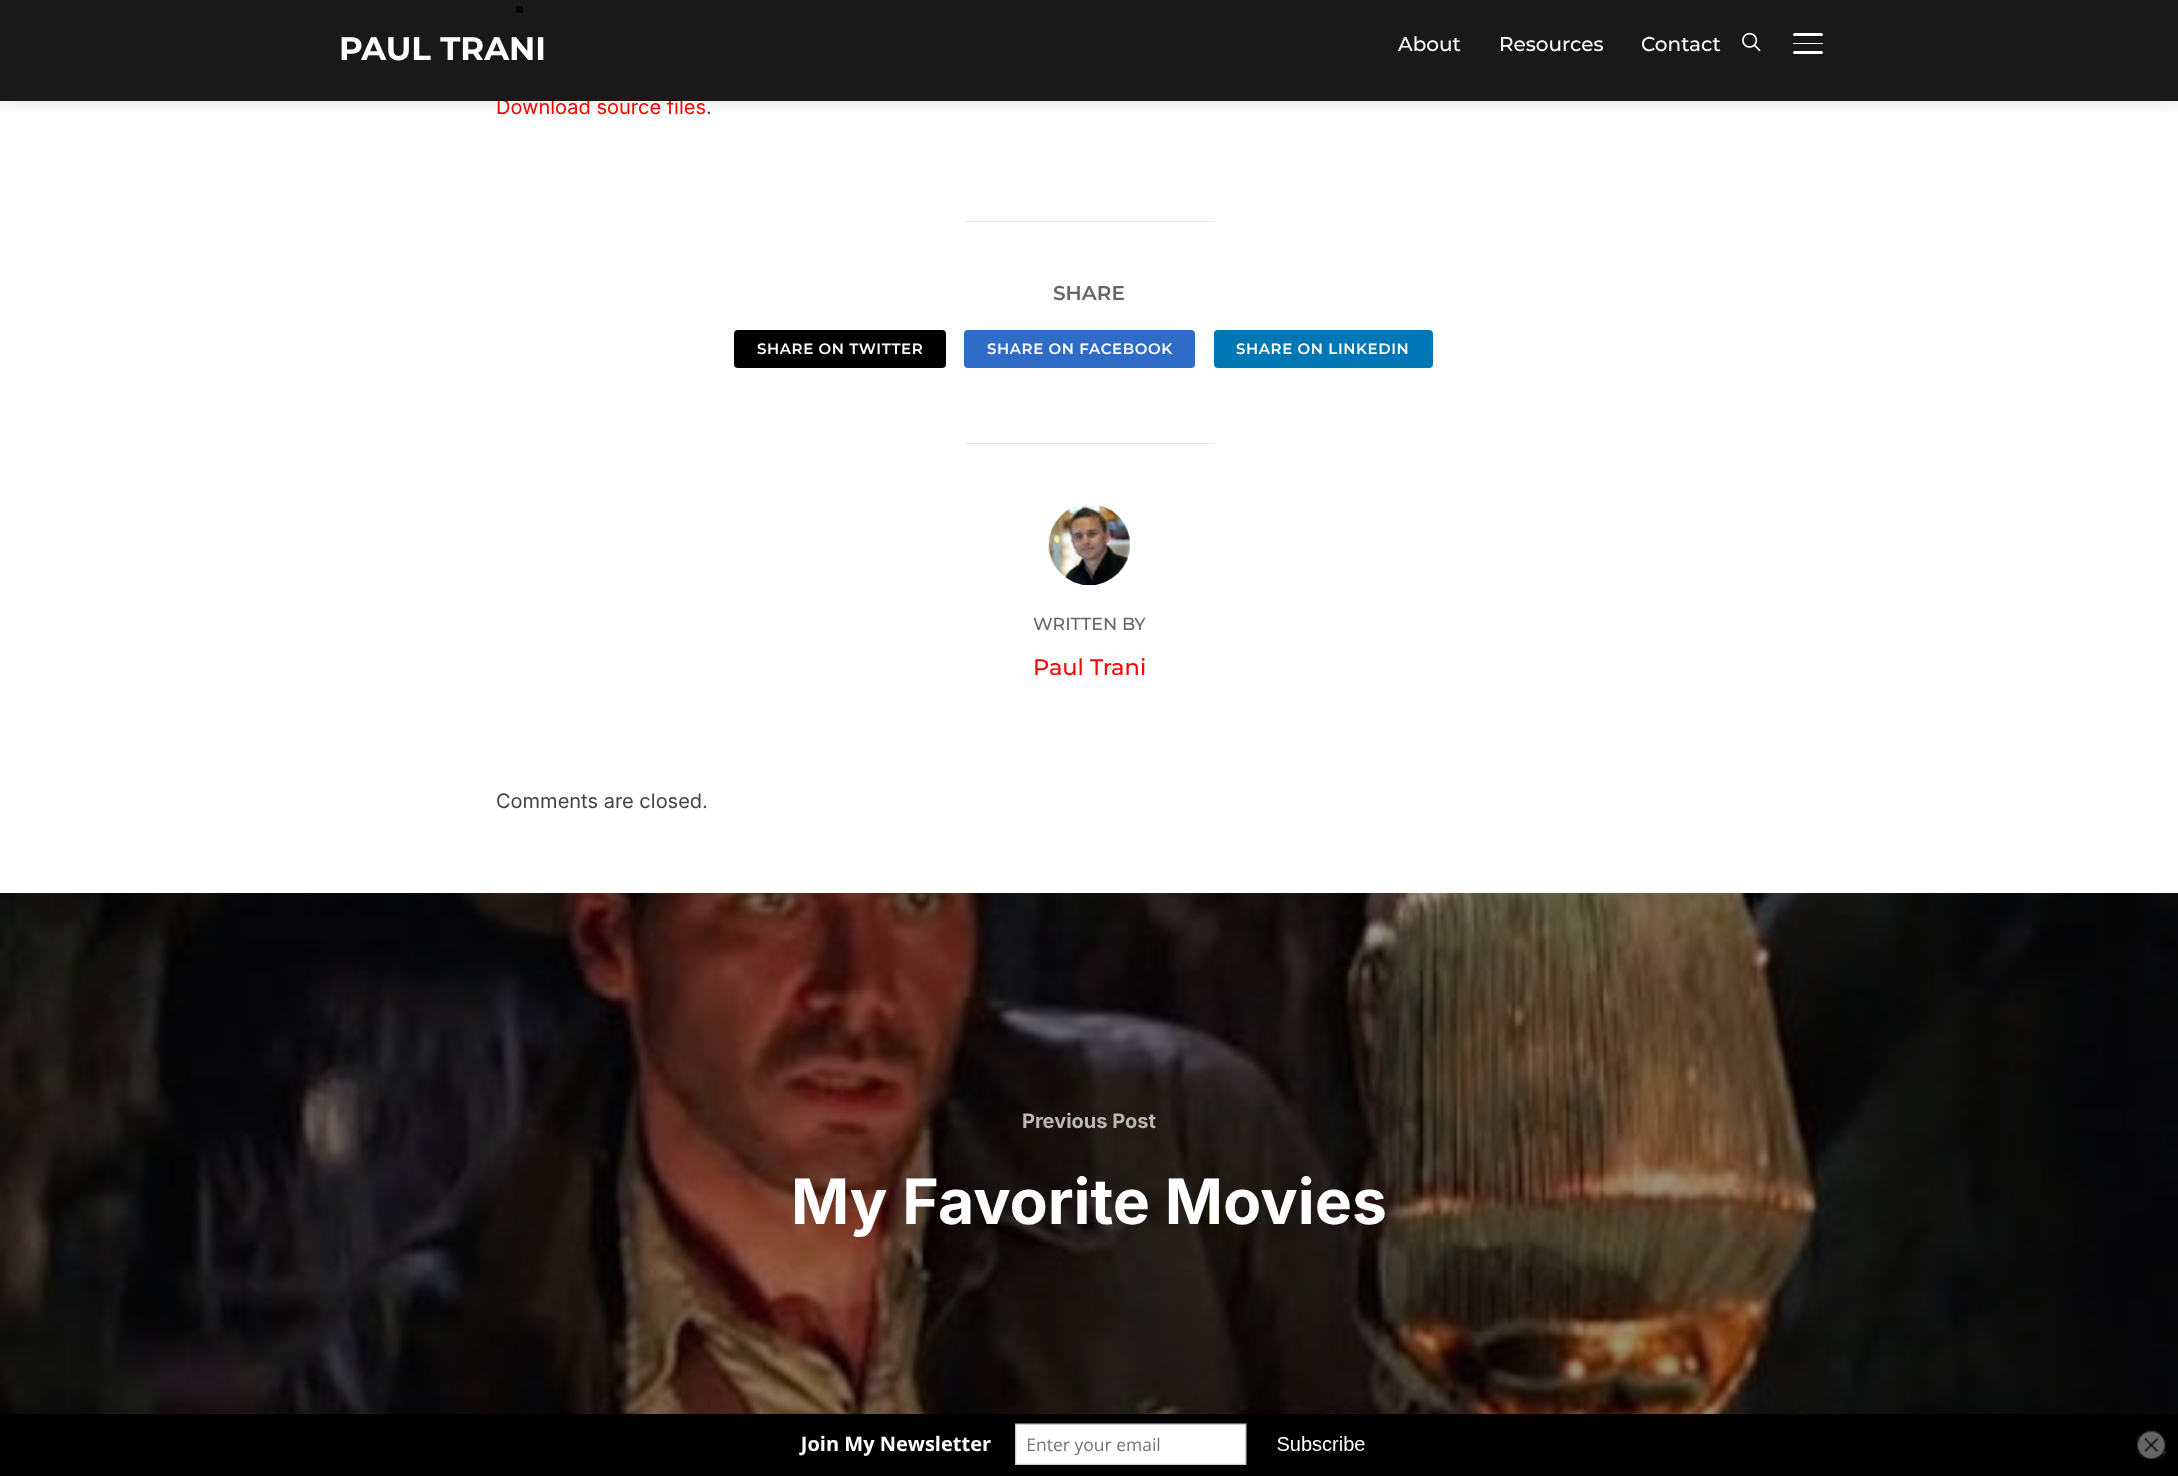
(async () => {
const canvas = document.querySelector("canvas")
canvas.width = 2178
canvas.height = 1476
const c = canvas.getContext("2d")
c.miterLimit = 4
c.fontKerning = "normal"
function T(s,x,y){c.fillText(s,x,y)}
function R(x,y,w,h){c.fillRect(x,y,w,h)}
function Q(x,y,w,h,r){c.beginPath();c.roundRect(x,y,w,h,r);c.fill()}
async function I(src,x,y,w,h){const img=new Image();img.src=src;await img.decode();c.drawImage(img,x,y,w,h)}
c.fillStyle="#fff"
R(0,0,2178,1476)
c.fillStyle="#444"
R(516,6,7,7)
R(516,40,7,6)
c.save()
c.beginPath()
c.rect(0,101,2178,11)
c.clip()
c.fillStyle="#0000001a"
c.filter="blur(11px)"
c.beginPath()
c.rect(-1,-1,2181,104)
c.fill()
c.filter="none"
c.restore()
c.font="20px Inter"
c.fillStyle="#f00"
T("Download source files",496,114)
c.fillStyle="#000000e6"
R(0,0,2178,101)
c.font="bold 32.5px Montserrat"
c.fillStyle="#fff"
T("PAUL TRANI",339,60)
c.font="500 20px Montserrat"
T("About",1398,51)
T("Resources",1499,51)
T("Contact",1641,51)
await I("1.png",1742,32,19,20)
Q(1793,33,30,3,1.5)
Q(1793,43,30,1,.5)
Q(1793,51,30,3,1.5)
c.font="20px Inter"
c.fillStyle="#444"
T(".",706,114)
c.fillStyle="#e6e6e6"
R(965,221,250,1)
c.font="600 20px Montserrat"
c.fillStyle="#666"
T("SHARE",1053,300)
c.fillStyle="#000"
Q(734,330,212,38,4)
c.letterSpacing="0.6px"
c.font="600 15px Montserrat"
c.fillStyle="#fff"
T("SHARE ON TWITTER",757,354)
c.fillStyle="#2e6cc8"
Q(964,330,231,38,4)
c.fillStyle="#fff"
T("SHARE ON FACEBOOK",987,354)
c.fillStyle="#0077b5"
Q(1214,330,219,38,4)
c.fillStyle="#fff"
T("SHARE ON LINKEDIN",1236,354)
c.fillStyle="#e6e6e6"
R(965,443,250,1)
await I("2.png",1048,504,82,82)
c.letterSpacing="0px"
c.font="500 17.5px Montserrat"
c.fillStyle="#666"
T("WRITTEN BY",1033,630)
c.font="500 22.5px Montserrat"
c.fillStyle="#f00"
T("Paul Trani",1033,675)
c.font="20px Inter"
c.fillStyle="#444"
T("Comments are closed.",496,808)
c.fillStyle="#060606"
R(0,893,2178,521)
await I("3.png",0,893,2178,521)
c.font="bold 20px Inter"
c.fillStyle="#bbb9b8"
T("Previous Post",1022,1128)
c.font="bold 62.5px Inter"
c.fillStyle="#fff"
T("My Favorite Movies",791,1224)
await I("4.png",0,1414,2178,62)
})()
